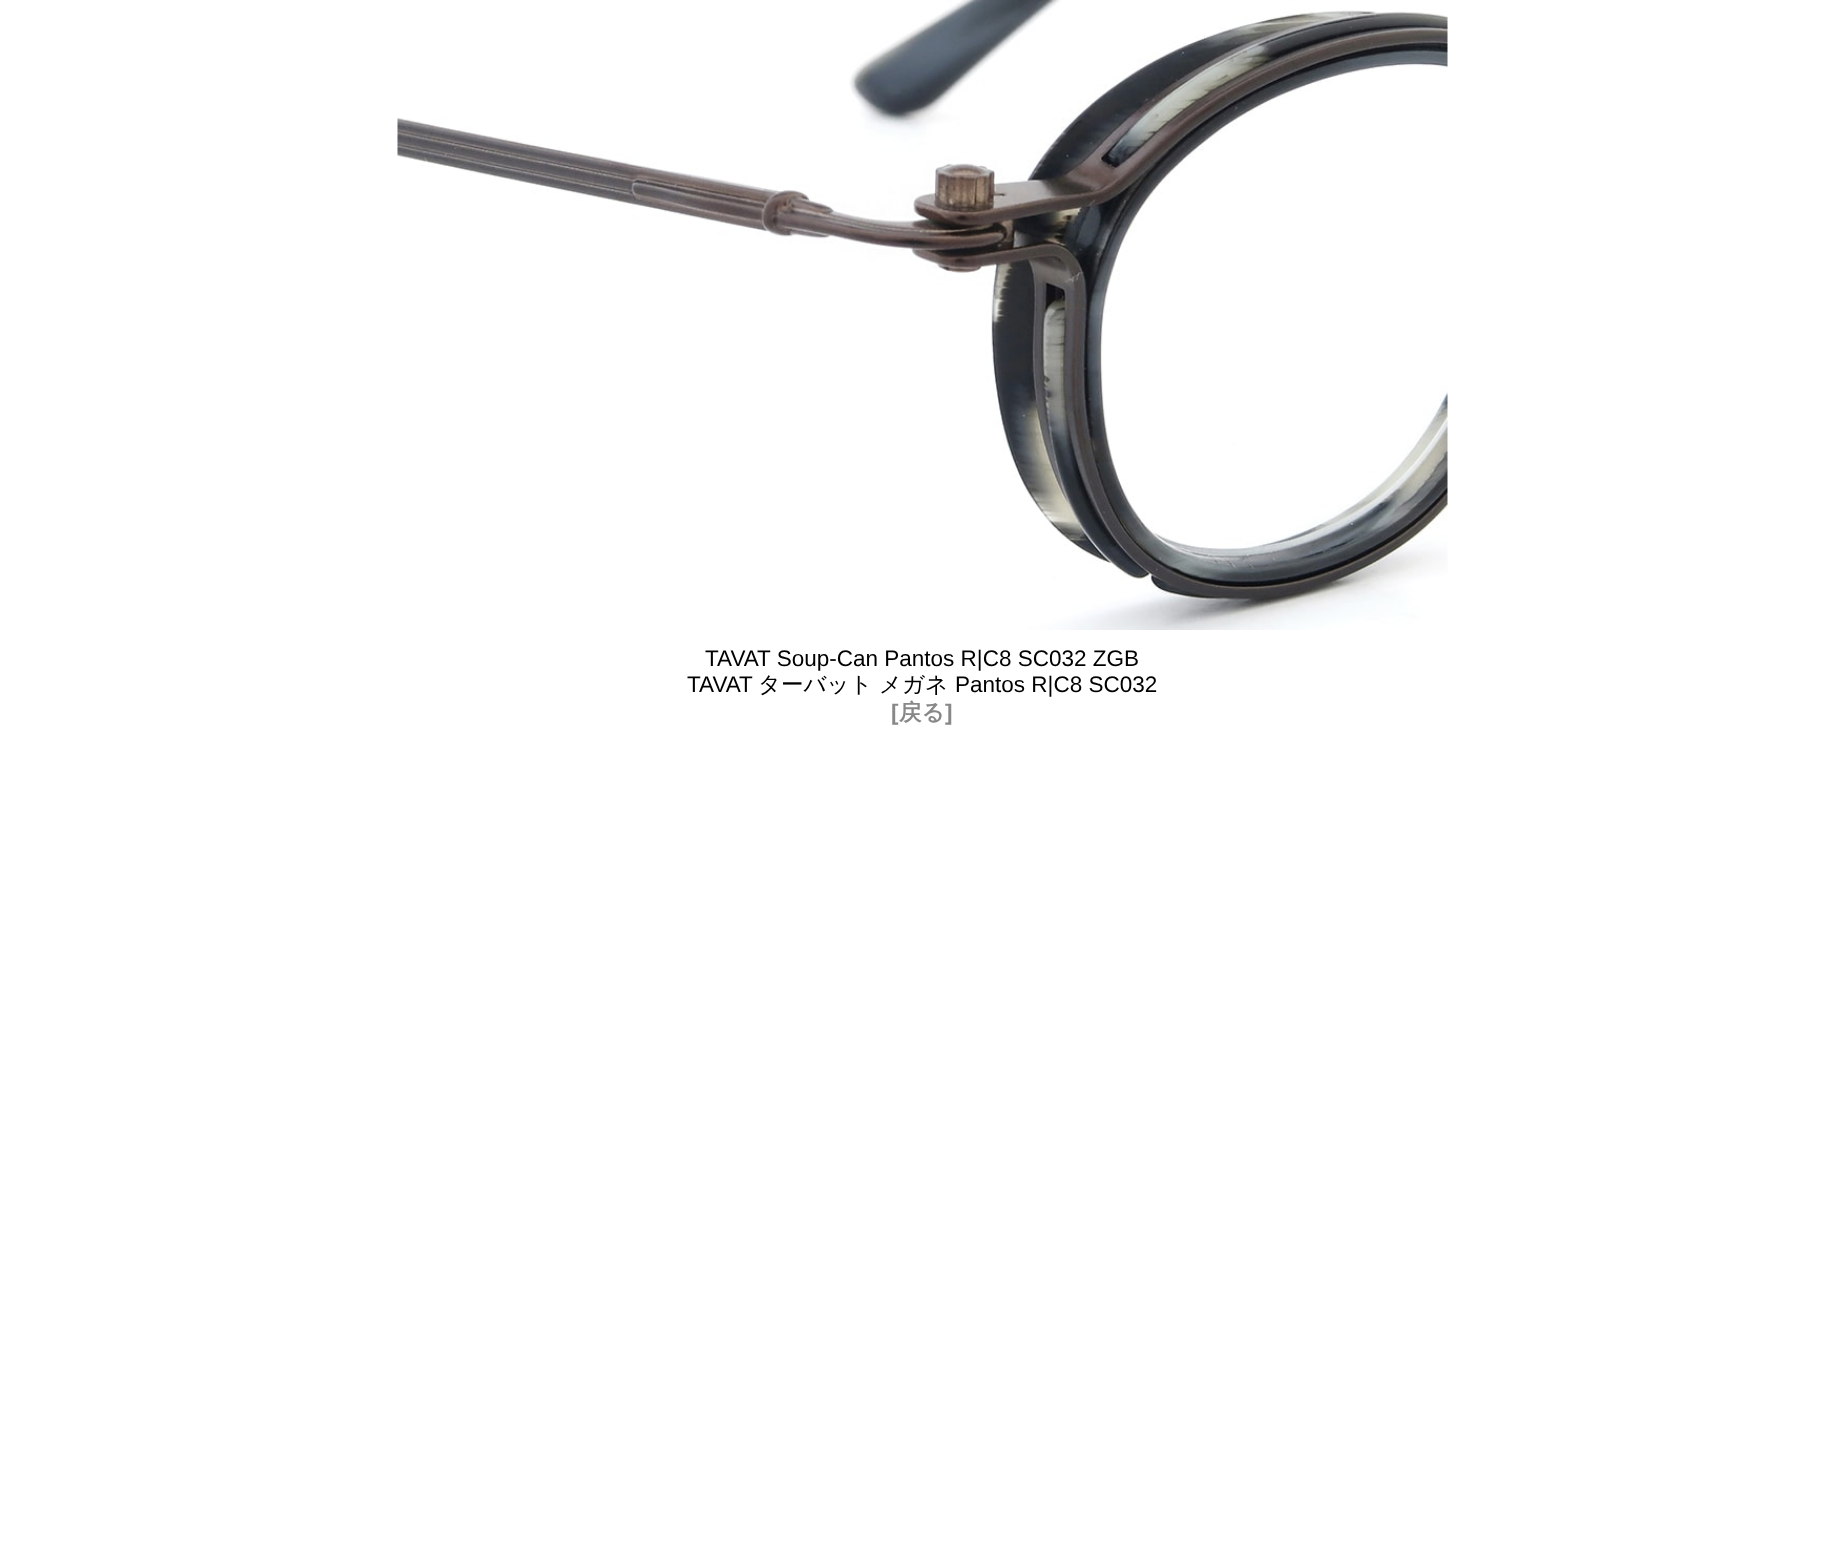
(async () => {
const canvas = document.querySelector("canvas")
canvas.width = 1843
canvas.height = 1566
const c = canvas.getContext("2d")
c.miterLimit = 4
c.fontKerning = "normal"
function T(s,x,y){c.fillText(s,x,y)}
function R(x,y,w,h){c.fillRect(x,y,w,h)}
async function I(src,x,y,w,h){const img=new Image();img.src=src;await img.decode();c.drawImage(img,x,y,w,h)}
c.fillStyle="#fff"
R(0,0,1843,1566)
await I("1.png",397,0,1051,630)
c.font="22.5px Liberation Sans"
c.fillStyle="#000"
T("TAVAT Soup-Can Pantos R|C8 SC032 ZGB",705,666)
T("TAVAT",687,692)
c.font="500 22.5px WenQuanYi Zen Hei"
T("ターバット",758,692)
T("メガネ",879,692)
c.font="22.5px Liberation Sans"
T("Pantos R|C8 SC032",955,692)
c.font="bold 22.5px Liberation Sans"
c.fillStyle="#888"
T("[",891,720)
c.font="bold 22.5px WenQuanYi Zen Hei"
T("戻る",899,720)
c.font="bold 22.5px Liberation Sans"
T("]",945,720)
})()
